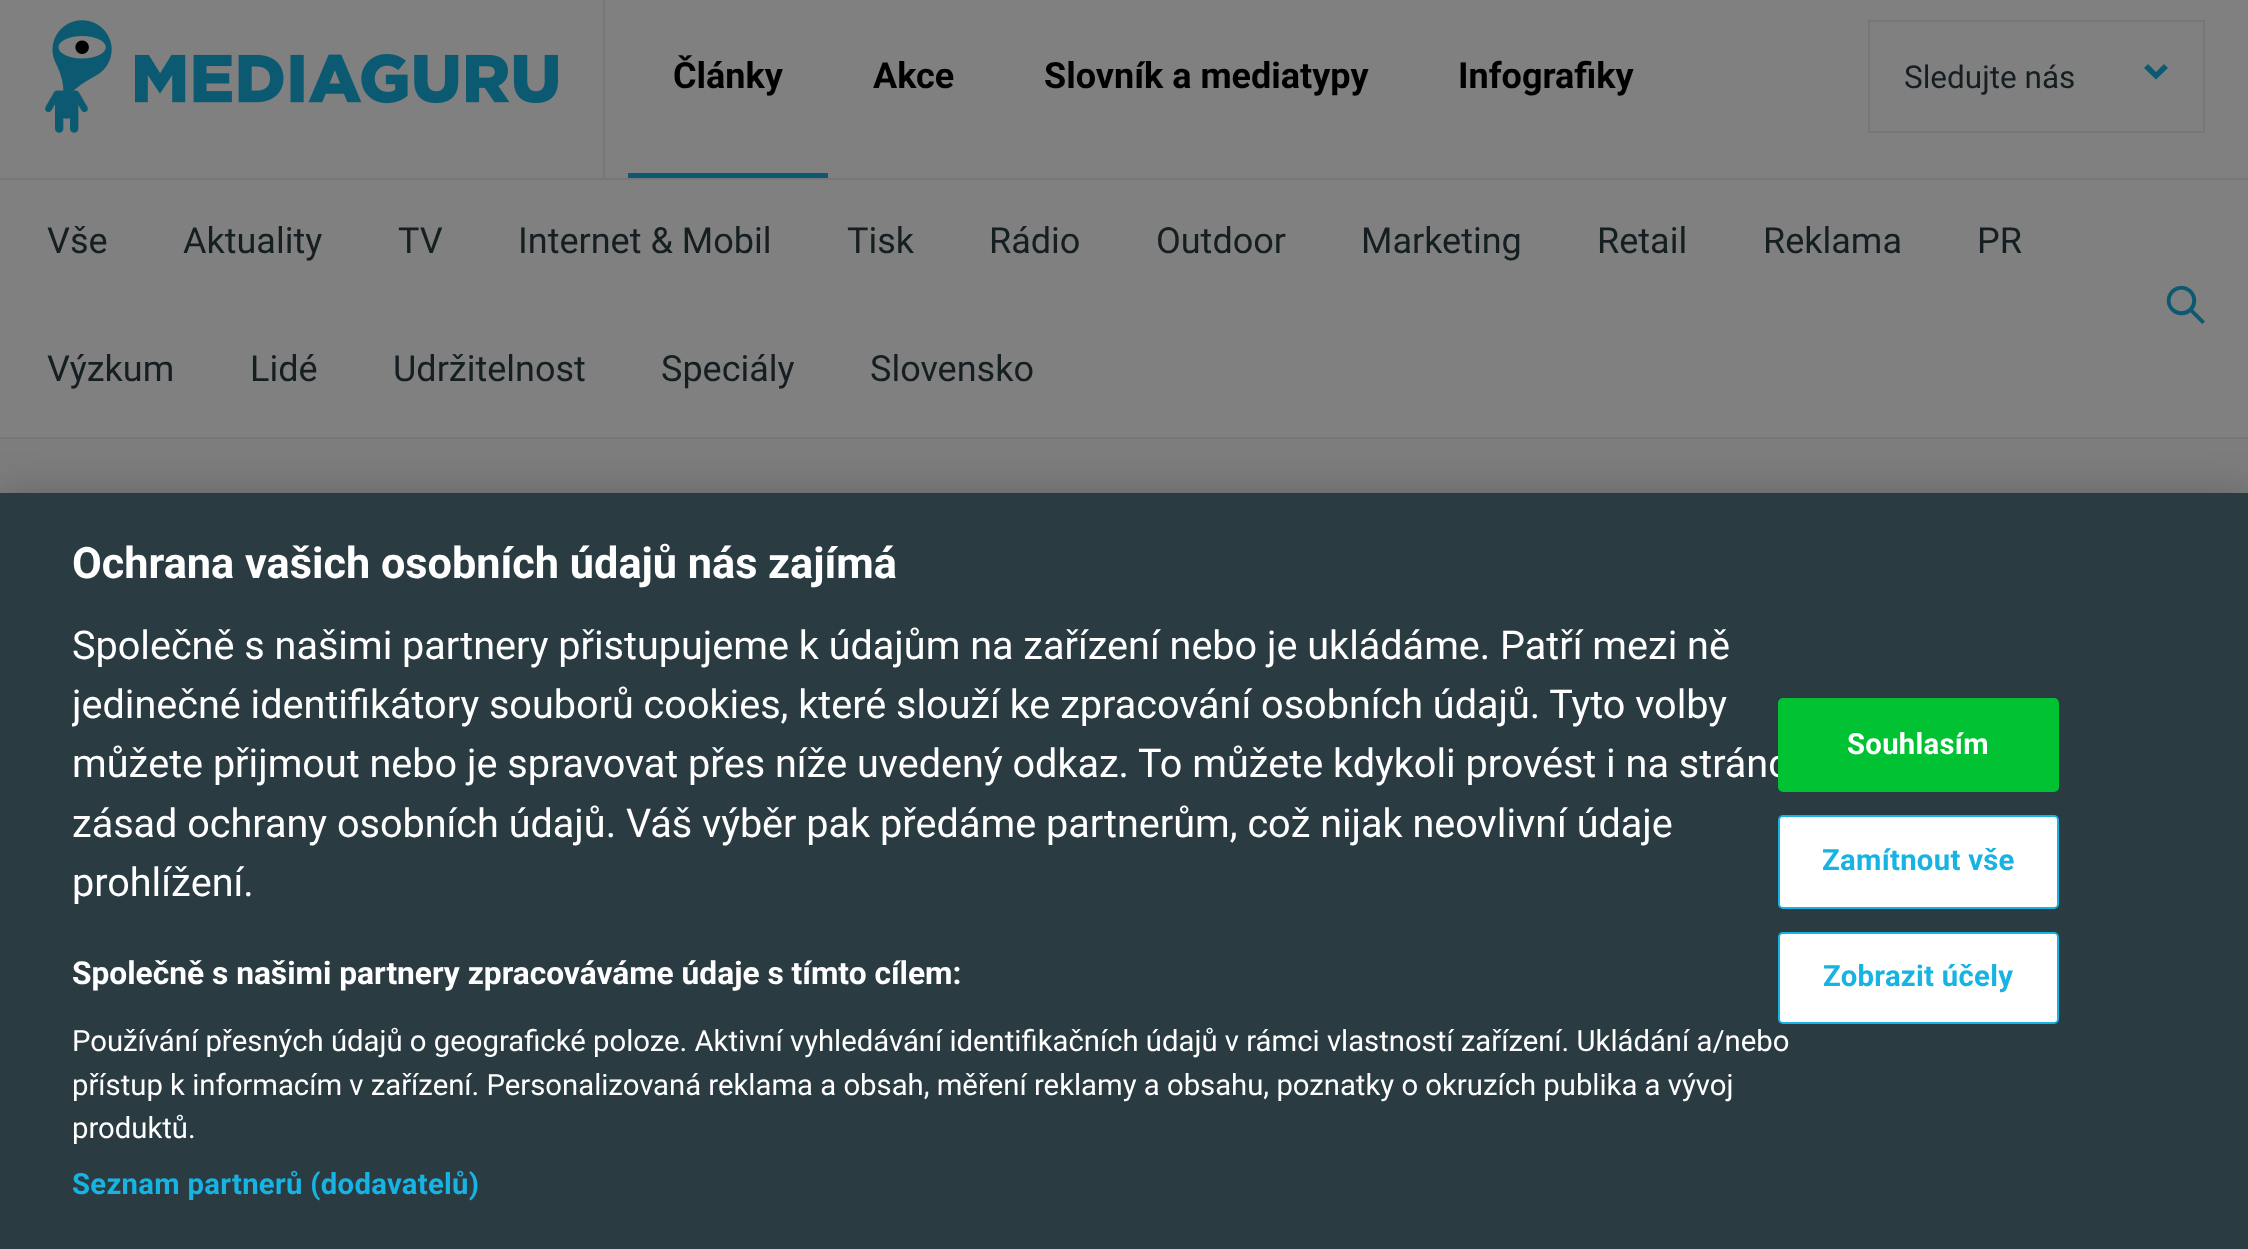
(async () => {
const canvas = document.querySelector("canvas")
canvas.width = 2248
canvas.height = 1249
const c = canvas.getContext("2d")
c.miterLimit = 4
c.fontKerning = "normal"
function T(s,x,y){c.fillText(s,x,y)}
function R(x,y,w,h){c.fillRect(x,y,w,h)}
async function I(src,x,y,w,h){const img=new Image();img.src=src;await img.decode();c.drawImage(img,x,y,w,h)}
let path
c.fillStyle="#7d7d7d"
R(0,0,2248,1249)
c.fillStyle="#808080"
R(0,0,2248,437)
c.fillStyle="#777"
R(603,0,2,178)
await I("1.png",45,20,513,113)
c.fillStyle="#0c5a72"
R(628,173,200,5)
c.font="bold 36px Roboto"
c.fillStyle="#000"
T("Články",673,88)
T("Akce",873,88)
T("Slovník a mediatypy",1044,88)
T("Infografiky",1458,88)
c.strokeStyle="#777"
c.lineWidth=2
c.strokeRect(1869,21,335,111)
c.font="31.5px Roboto"
c.fillStyle="#151e21"
T("Sledujte nás",1904,88)
c.fillStyle="#0c5a72"
path = new Path2D("M2168 68l-4-4l-8 8l-8-8l-4 4l12 11.5z")
c.fill(path)
c.fillStyle="#777"
R(0,178,2248,2)
R(0,437,2248,2)
c.font="36px Roboto"
c.fillStyle="#151e21"
T("Vše",47,253)
T("Aktuality",183,253)
T("TV",398,253)
T("Internet & Mobil",518,253)
T("Tisk",847,253)
T("Rádio",989,253)
T("Outdoor",1156,253)
T("Marketing",1361,253)
T("Retail",1597,253)
T("Reklama",1763,253)
T("PR",1977,253)
T("Výzkum",47,381)
T("Lidé",250,381)
T("Udržitelnost",393,381)
T("Speciály",661,381)
T("Slovensko",870,381)
await I("2.png",2166,285,39,39)
c.fillStyle="#00000033"
c.filter="blur(20px)"
c.beginPath()
c.rect(0,493,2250,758)
c.fill()
c.filter="none"
c.fillStyle="#2a3b42"
R(0,493,2248,756)
c.font="bold 43.25px Roboto"
c.fillStyle="#fff"
T("Ochrana vašich osobních údajů nás zajímá",72,578)
c.font="39.6px Roboto"
T("Společně s našimi partnery přistupujeme k údajům na zařízení nebo je ukládáme. Patří mezi ně",72,659)
c.save()
c.beginPath()
c.rect(72,538,1789,691)
c.clip()
T("jedinečné identifikátory souborů cookies, které slouží ke zpracování osobních údajů. Tyto volby",72,718)
c.restore()
T("můžete přijmout nebo je spravovat přes níže uvedený odkaz. To můžete kdykoli provést i na stránc",72,777)
T("zásad ochrany osobních údajů. Váš výběr pak předáme partnerům, což nijak neovlivní údaje",72,837)
T("prohlížení.",72,896)
c.font="bold 31.7px Roboto"
T("Společně s našimi partnery zpracováváme údaje s tímto cílem:",72,984)
c.font="29.27px Roboto"
T("Používání přesných údajů o geografické poloze. Aktivní vyhledávání identifikačních údajů v rámci vlastností zařízení. Ukládání a/nebo",72,1051)
T("přístup k informacím v zařízení. Personalizovaná reklama a obsah, měření reklamy a obsahu, poznatky o okruzích publika a vývoj",72,1095)
T("produktů.",72,1138)
c.letterSpacing="0.3px"
c.font="bold 29.27px Roboto"
c.fillStyle="#17b3e3"
T("Seznam partnerů (dodavatelů)",72,1194)
c.fillStyle="#00c232"
c.beginPath()
c.roundRect(1779,699,279,92,4)
c.fill()
c.strokeStyle="#00c232"
c.stroke()
c.fillStyle="#fff"
T("Souhlasím",1847,754)
c.beginPath()
c.roundRect(1779,816,279,92,4)
c.fill()
c.strokeStyle="#17b3e3"
c.stroke()
c.fillStyle="#17b3e3"
T("Zamítnout vše",1822,870)
c.fillStyle="#fff"
c.beginPath()
c.roundRect(1779,933,279,90,4)
c.fill()
c.stroke()
c.fillStyle="#17b3e3"
T("Zobrazit účely",1823,986)
})()
